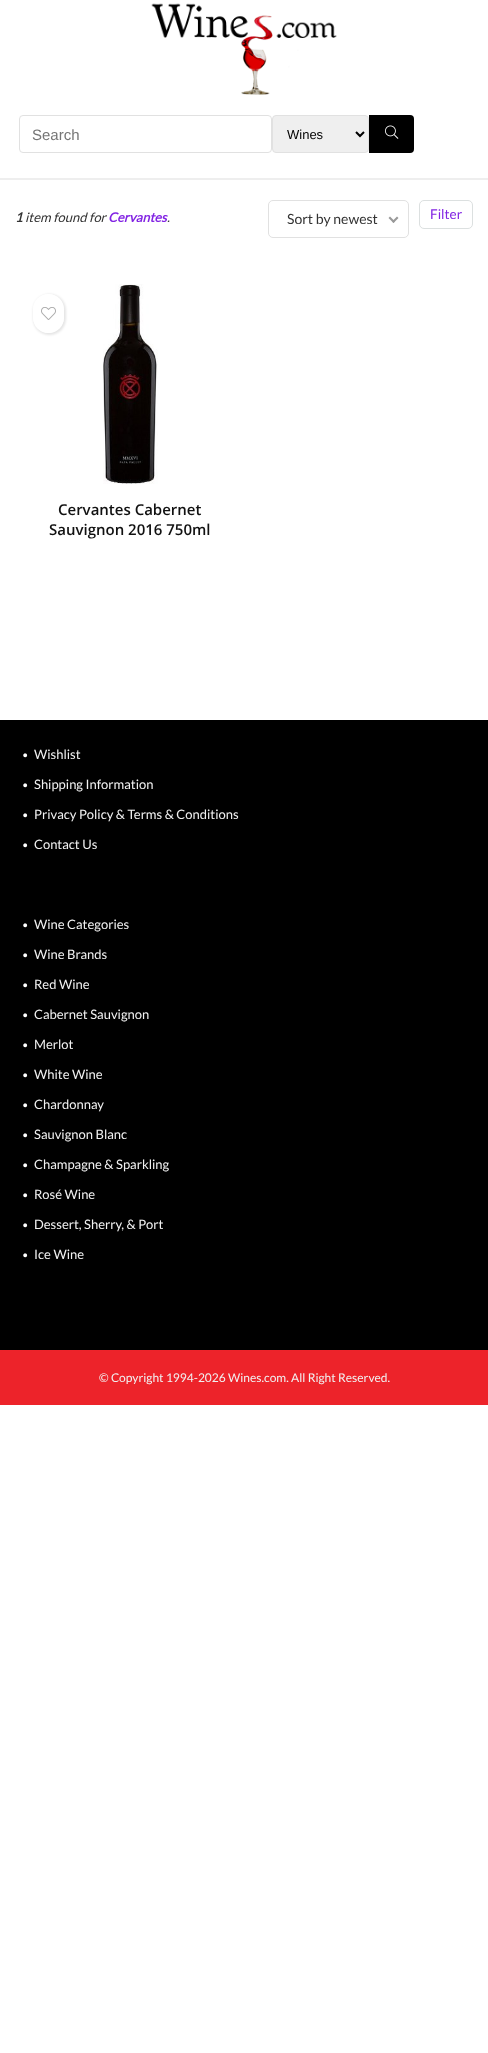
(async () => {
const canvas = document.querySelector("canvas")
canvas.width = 488
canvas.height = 2053
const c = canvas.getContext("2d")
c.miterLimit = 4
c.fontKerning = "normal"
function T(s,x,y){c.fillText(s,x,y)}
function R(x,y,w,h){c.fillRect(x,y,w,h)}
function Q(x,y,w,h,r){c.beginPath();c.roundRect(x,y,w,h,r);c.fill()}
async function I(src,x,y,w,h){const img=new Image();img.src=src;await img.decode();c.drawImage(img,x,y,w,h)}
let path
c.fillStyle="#fff"
R(0,0,488,2053)
await I("1.png",151,3,186,92)
c.beginPath()
c.roundRect(19.5,115.5,252,37,3.5)
c.strokeStyle="#e1e1e1"
c.stroke()
c.font="15px Liberation Sans"
c.fillStyle="#757575"
T("Search",32,140)
c.fillStyle="#efefef"
c.beginPath()
c.roundRect(272.5,115.5,96,37,3.5)
c.fill()
c.stroke()
path = new Path2D("M356 132l4 4l4-4")
c.strokeStyle="#000"
c.lineWidth=2
c.stroke(path)
c.font="13px Liberation Sans"
c.fillStyle="#000"
T("Wines",287,139)
c.beginPath()
c.roundRect(369,115,45,38,[0,4,4,0])
c.fill()
await I("2.png",385,125,14,14)
c.fillStyle="#eee"
R(0,178,488,2)
c.font="italic bold 13px Lato"
c.fillStyle="#333"
T("1",15,222)
c.font="italic 13px Lato"
T("item found for",25,222)
c.font="italic bold 13px Lato"
c.fillStyle="#8224e3"
T("Cervantes",108,222)
c.font="italic 13px Lato"
c.fillStyle="#333"
T(".",167,222)
c.beginPath()
c.roundRect(268.5,200.5,140,37,4.5)
c.strokeStyle="#e1e1e1"
c.lineWidth=1
c.stroke()
c.font="14px Lato"
T("Sort by newest",287,224)
c.fillStyle="#999"
path = new Path2D("M397 216.5l1.5 1.5l-5 5l-1.5-1.5z")
c.fill(path)
path = new Path2D("M390 216.5l5 5l-1.5 1.5l-5-5z")
c.fill(path)
c.beginPath()
c.roundRect(419.5,200.5,53,28,4.5)
c.strokeStyle="#dce0e0"
c.stroke()
c.font="13.5px Lato"
c.fillStyle="#8224e3"
T("Filter",430,219)
c.save()
path = new Path2D("M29 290h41v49h-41zm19.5 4c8.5 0 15.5 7 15.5 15.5v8c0 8.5-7 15.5-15.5 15.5c-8.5 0-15.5-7-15.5-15.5v-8c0-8.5 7-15.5 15.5-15.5z")
c.clip(path,"evenodd")
c.fillStyle="#0000001a"
c.filter="blur(1px)"
c.beginPath()
c.roundRect(33,294,33,41,16.5)
c.fill()
c.filter="none"
c.restore()
c.fillStyle="#ffffffc7"
Q(33,294,31,39,15.5)
await I("3.png",41,307,15,13)
await I("4.png",103,284,55,200)
c.font="600 15px Open Sans"
c.fillStyle="#111"
T("Cervantes Cabernet",58,515)
T("Sauvignon 2016 750ml",49,535)
c.fillStyle="#000"
R(0,720,488,630)
c.font="30px Lato"
c.fillStyle="#fff"
T(".",22,757)
c.font="13px Lato"
c.fillStyle="#f1f1f1"
T("Wishlist",34,759)
c.font="30px Lato"
c.fillStyle="#fff"
T(".",22,787)
c.font="13px Lato"
c.fillStyle="#f1f1f1"
T("Shipping Information",34,789)
c.font="30px Lato"
c.fillStyle="#fff"
T(".",22,817)
c.font="13px Lato"
c.fillStyle="#f1f1f1"
T("Privacy Policy & Terms & Conditions",34,819)
c.font="30px Lato"
c.fillStyle="#fff"
T(".",22,847)
c.font="13px Lato"
c.fillStyle="#f1f1f1"
T("Contact Us",34,849)
c.font="30px Lato"
c.fillStyle="#fff"
T(".",22,927)
c.font="13px Lato"
c.fillStyle="#f1f1f1"
T("Wine Categories",34,929)
c.font="30px Lato"
c.fillStyle="#fff"
T(".",22,957)
c.font="13px Lato"
c.fillStyle="#f1f1f1"
T("Wine Brands",34,959)
c.font="30px Lato"
c.fillStyle="#fff"
T(".",22,987)
c.font="13px Lato"
c.fillStyle="#f1f1f1"
T("Red Wine",34,989)
c.font="30px Lato"
c.fillStyle="#fff"
T(".",22,1017)
c.font="13px Lato"
c.fillStyle="#f1f1f1"
T("Cabernet Sauvignon",34,1019)
c.font="30px Lato"
c.fillStyle="#fff"
T(".",22,1047)
c.font="13px Lato"
c.fillStyle="#f1f1f1"
T("Merlot",34,1049)
c.font="30px Lato"
c.fillStyle="#fff"
T(".",22,1077)
c.font="13px Lato"
c.fillStyle="#f1f1f1"
T("White Wine",34,1079)
c.font="30px Lato"
c.fillStyle="#fff"
T(".",22,1107)
c.font="13px Lato"
c.fillStyle="#f1f1f1"
T("Chardonnay",34,1109)
c.font="30px Lato"
c.fillStyle="#fff"
T(".",22,1137)
c.font="13px Lato"
c.fillStyle="#f1f1f1"
T("Sauvignon Blanc",34,1139)
c.font="30px Lato"
c.fillStyle="#fff"
T(".",22,1167)
c.font="13px Lato"
c.fillStyle="#f1f1f1"
T("Champagne & Sparkling",34,1169)
c.font="30px Lato"
c.fillStyle="#fff"
T(".",22,1197)
c.font="13px Lato"
c.fillStyle="#f1f1f1"
T("Rosé Wine",34,1199)
c.font="30px Lato"
c.fillStyle="#fff"
T(".",22,1227)
c.font="13px Lato"
c.fillStyle="#f1f1f1"
T("Dessert, Sherry, & Port",34,1229)
c.font="30px Lato"
c.fillStyle="#fff"
T(".",22,1257)
c.font="13px Lato"
c.fillStyle="#f1f1f1"
T("Ice Wine",34,1259)
c.fillStyle="#ed232a"
R(0,1350,488,55)
c.font="12px Lato"
c.fillStyle="#f1f1f1"
T("© Copyright 1994-2026 Wines.com. All Right Reserved.",99,1382)
})()
